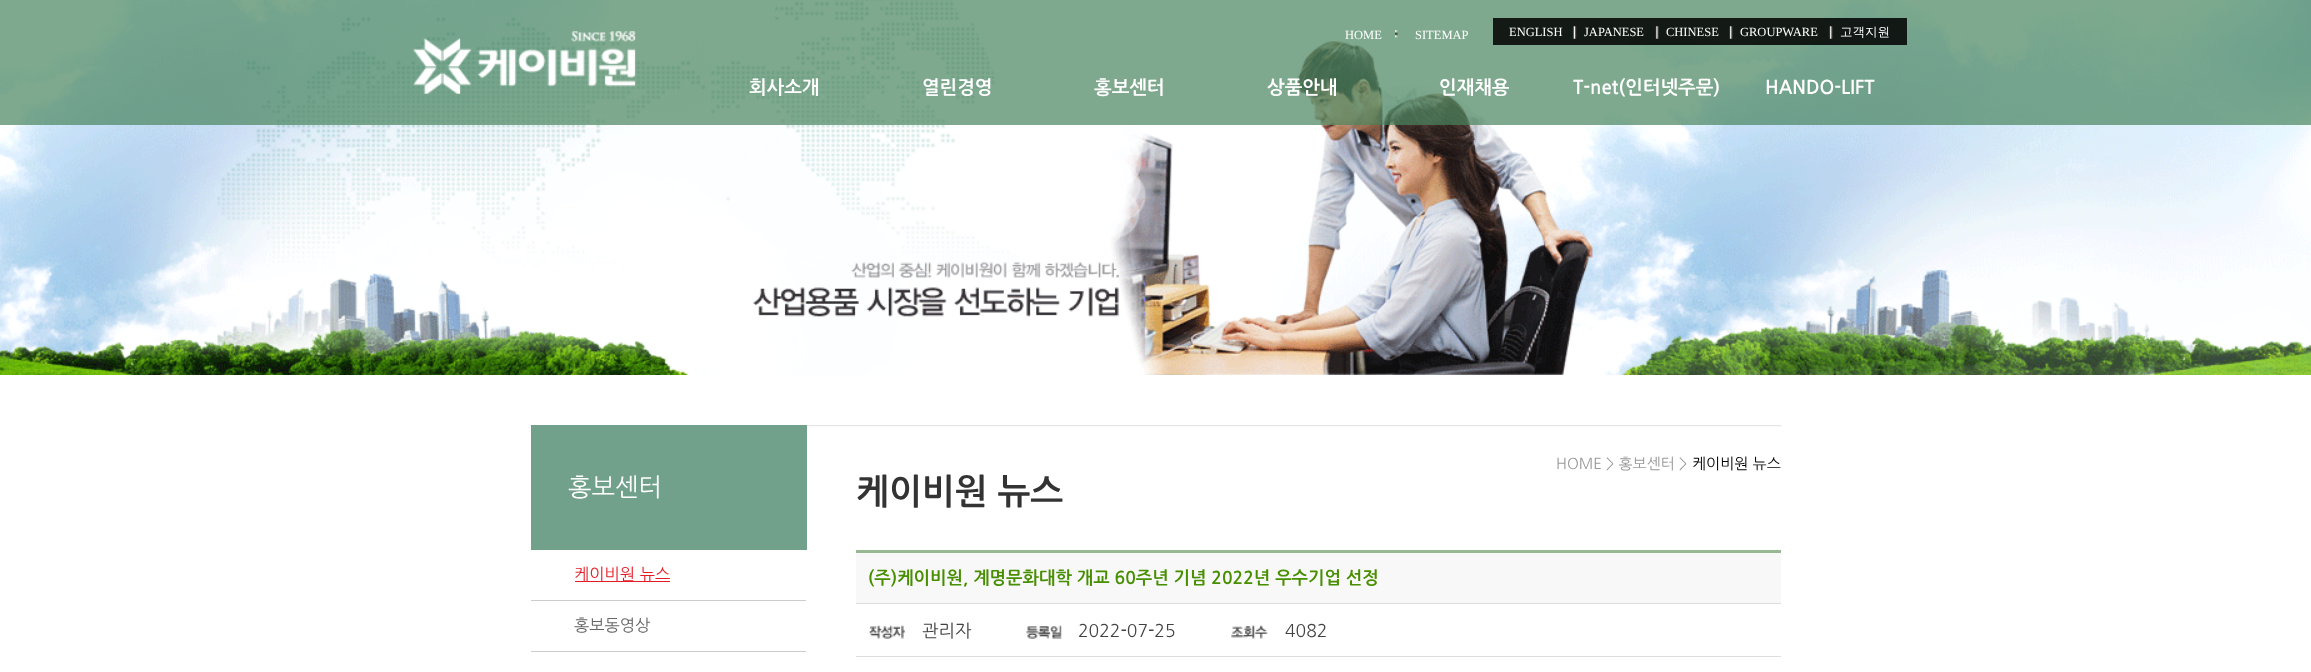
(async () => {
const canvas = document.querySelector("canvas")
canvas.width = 2311
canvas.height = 672
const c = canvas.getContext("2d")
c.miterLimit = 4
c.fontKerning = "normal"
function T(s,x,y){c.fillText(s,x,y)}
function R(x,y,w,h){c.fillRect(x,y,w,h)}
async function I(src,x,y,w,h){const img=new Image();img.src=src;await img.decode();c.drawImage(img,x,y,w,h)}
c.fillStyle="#fff"
R(0,0,2311,672)
await I("1.png",0,0,2311,375)
c.fillStyle="#49845eb3"
R(0,0,2311,125)
await I("2.png",413,31,223,63)
c.font="12.5px Liberation Serif"
c.fillStyle="#fff"
T("HOME",1345,39)
await I("3.png",1395,30,3,8)
T("SITEMAP",1415,39)
c.fillStyle="#000000d9"
R(1493,18,414,27)
c.fillStyle="#fff"
T("ENGLISH",1509,36)
await I("4.png",1572,26,5,13)
T("JAPANESE",1584,36)
await I("5.png",1655,26,4,13)
T("CHINESE",1666,36)
await I("6.png",1729,26,4,13)
T("GROUPWARE",1740,36)
await I("7.png",1828,26,5,13)
c.font="500 12.5px WenQuanYi Zen Hei"
T("고객지원",1840,36)
c.font="bold 18.75px NanumGothic"
T("회사소개",749,94)
T("열린경영",922,94)
T("홍보센터",1094,94)
T("상품안내",1267,94)
T("인재채용",1439,94)
T("T-net(인터넷주문)",1573,94)
T("HANDO-LIFT",1765,94)
await I("8.png",807,425,975,2)
c.fillStyle="#71a18b"
R(531,425,276,125)
c.font="25px NanumGothic"
c.fillStyle="#fff"
T("홍보센터",568,496)
c.fillStyle="#ccc"
R(531,600,275,1)
c.fillStyle="#e51b24"
R(575,581,95,1)
c.font="16.25px NanumGothic"
T("케이비원 뉴스",574,580)
c.fillStyle="#ccc"
R(531,651,275,1)
c.fillStyle="#666"
T("홍보동영상",574,631)
c.font="15px NanumGothic"
c.fillStyle="#999"
T("HOME > 홍보센터 >",1556,469)
c.fillStyle="#000"
T("케이비원 뉴스",1692,469)
c.font="bold 35px NanumGothic"
c.fillStyle="#333"
T("케이비원 뉴스",856,504)
c.fillStyle="#98b893"
R(856,550,925,3)
c.fillStyle="#f8f8f8"
R(856,553,925,50)
c.fillStyle="#ddd"
R(856,603,925,1)
c.font="bold 17.5px NanumGothic"
c.fillStyle="#478f00"
T("(주)케이비원, 계명문화대학 개교 60주년 기념 2022년 우수기업 선정",868,584)
c.fillStyle="#ddd"
R(856,656,925,1)
await I("9.png",868,625,37,14)
c.font="17.5px NanumGothic"
c.fillStyle="#424242"
T("관리자",922,637)
await I("10.png",1026,625,36,14)
T("2022-07-25",1078,637)
await I("11.png",1231,625,37,14)
T("4082",1285,637)
})()
